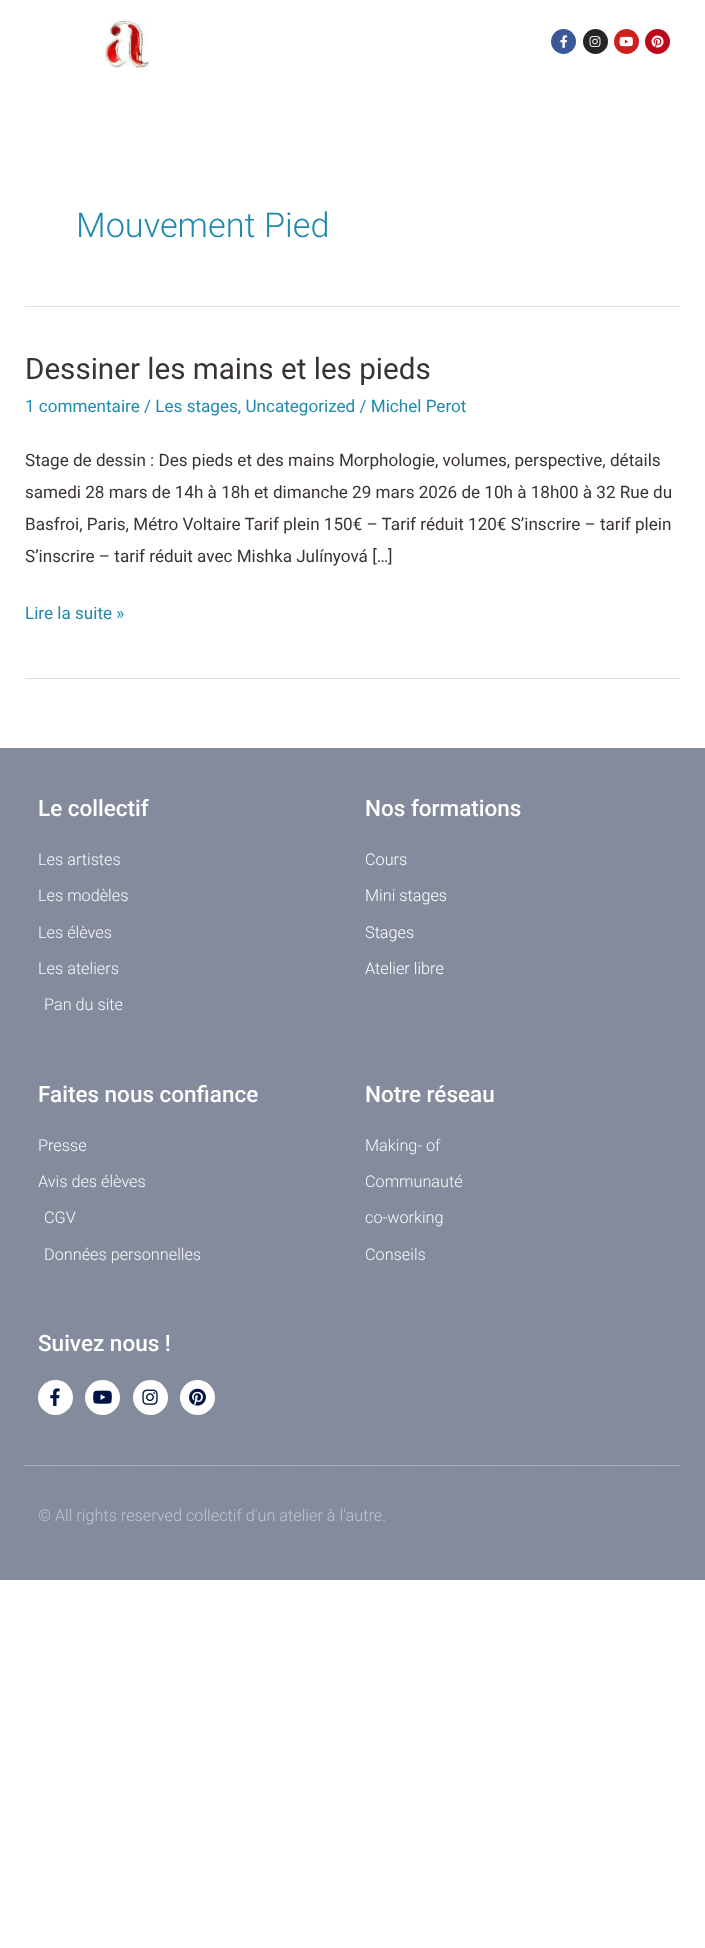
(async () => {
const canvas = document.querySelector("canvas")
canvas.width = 705
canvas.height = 1948
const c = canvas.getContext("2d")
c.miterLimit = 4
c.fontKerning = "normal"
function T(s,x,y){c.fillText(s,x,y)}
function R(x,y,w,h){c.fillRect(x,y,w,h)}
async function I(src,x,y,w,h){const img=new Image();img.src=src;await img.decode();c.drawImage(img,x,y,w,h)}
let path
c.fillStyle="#fff"
R(0,0,705,1948)
await I("1.png",105,20,45,48)
c.fillStyle="#3b5998"
c.beginPath()
c.arc(563.5,41.5,12.5,0,7)
c.fill()
await I("2.png",560,35,8,13)
c.fillStyle="#262626"
c.beginPath()
c.arc(595.5,41.5,12.5,0,7)
c.fill()
await I("3.png",589,36,12,11)
c.fillStyle="#cd201f"
c.beginPath()
c.arc(626.5,41.5,12.5,0,7)
c.fill()
await I("4.png",619,36,14,11)
c.fillStyle="#bd081c"
c.beginPath()
c.arc(657.5,41.5,12.5,0,7)
c.fill()
await I("5.png",651,35,13,13)
c.fillStyle="#ddd"
R(25,306,655,1)
c.font="300 34.25px Roboto"
c.fillStyle="#208aae"
T("Mouvement Pied",76,237)
c.fillStyle="#ddd"
R(25,678,655,1)
c.font="29.6px Roboto"
c.fillStyle="#3a3335"
T("Dessiner les mains et les pieds",25,379)
c.font="17.1px Roboto"
c.fillStyle="#208aae"
T("1 commentaire / Les stages, Uncategorized / Michel Perot",25,412)
c.fillStyle="#3a3335"
T("Stage de dessin : Des pieds et des mains Morphologie, volumes, perspective, détails",25,466)
T("samedi 28 mars de 14h à 18h et dimanche 29 mars 2026 de 10h à 18h00 à 32 Rue du",25,498)
T("Basfroi, Paris, Métro Voltaire Tarif plein 150€ – Tarif réduit 120€ S’inscrire – tarif plein",25,530)
T("S’inscrire – tarif réduit avec Mishka Julínyová […]",25,562)
c.fillStyle="#208aae"
T("Lire la suite »",25,619)
c.fillStyle="#838b9d"
R(0,748,705,832)
c.font="500 22.5px Roboto"
c.fillStyle="#fff"
T("Le collectif",38,816)
c.font="300 16.25px Roboto"
c.fillStyle="#f9f9fa"
T("Les artistes",38,865)
T("Les modèles",38,901)
T("Les élèves",38,938)
T("Les ateliers",38,974)
T("Pan du site",44,1010)
c.font="500 22.5px Roboto"
c.fillStyle="#fff"
T("Nos formations",365,816)
c.font="300 16.25px Roboto"
T("Cours",365,865)
T("Mini stages",365,901)
T("Stages",365,938)
T("Atelier libre",365,974)
c.font="500 22.5px Roboto"
T("Faites nous confiance",38,1102)
c.font="300 16.25px Roboto"
c.fillStyle="#f9f9fa"
T("Presse",38,1151)
T("Avis des élèves",38,1187)
T("CGV",44,1223)
T("Données personnelles",44,1260)
c.font="500 22.5px Roboto"
c.fillStyle="#fff"
T("Notre réseau",365,1102)
c.font="300 16.25px Roboto"
c.fillStyle="#f9f9fa"
T("Making- of",365,1151)
T("Communauté",365,1187)
T("co-working",365,1223)
T("Conseils",365,1260)
c.font="500 22.5px Roboto"
c.fillStyle="#fff"
T("Suivez nous !",38,1351)
c.beginPath()
c.arc(55.5,1397.5,17.5,0,7)
c.fill()
await I("6.png",50,1388,10,18)
c.beginPath()
c.arc(102.5,1397.5,17.5,0,7)
c.fill()
await I("7.png",93,1390,19,14)
c.beginPath()
c.arc(150.5,1397.5,17.5,0,7)
c.fill()
await I("8.png",142,1389,16,16)
c.beginPath()
c.arc(197.5,1397.5,17.5,0,7)
c.fill()
await I("9.png",189,1388,17,18)
path = new Path2D("M25 1465.5h655")
c.strokeStyle="#cccfd7"
c.lineWidth=1.2
c.setLineDash([1.25,1.25])
c.stroke(path)
c.font="300 16.25px Roboto"
c.fillStyle="#c1c5ce"
T("© All rights reserved collectif d'un atelier à l'autre.",38,1521)
})()
